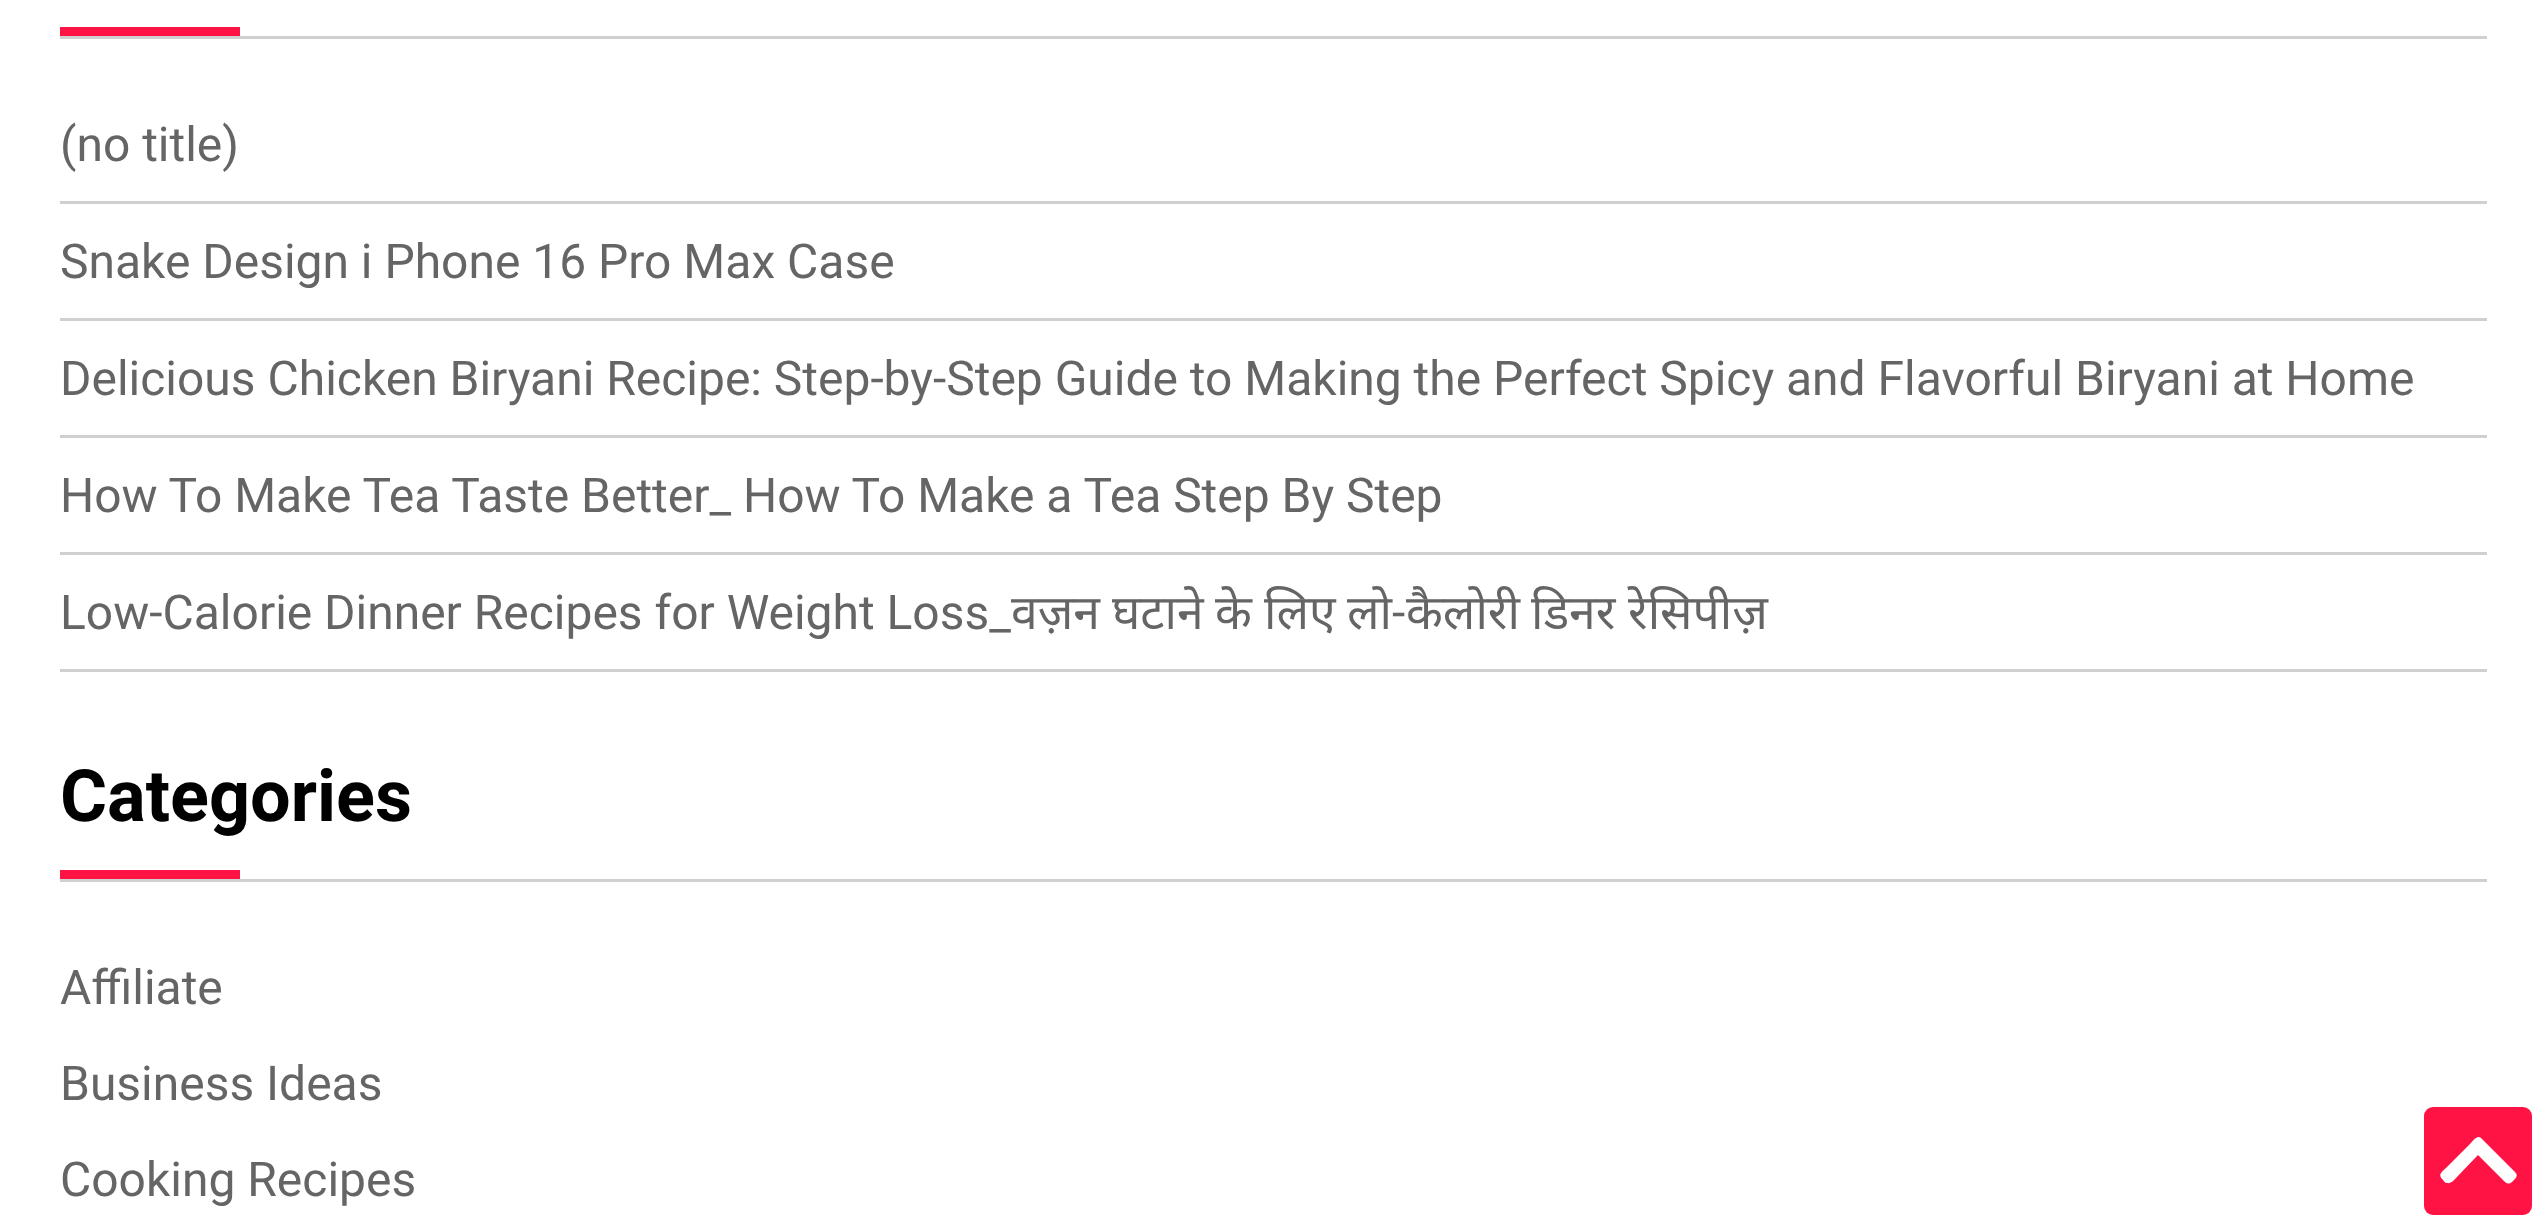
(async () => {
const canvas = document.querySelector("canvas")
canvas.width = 2547
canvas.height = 1230
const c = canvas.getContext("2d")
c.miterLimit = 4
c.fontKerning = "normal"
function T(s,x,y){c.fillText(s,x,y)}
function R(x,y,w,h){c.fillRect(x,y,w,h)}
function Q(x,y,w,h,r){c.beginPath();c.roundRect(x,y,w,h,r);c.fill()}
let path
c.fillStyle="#fff"
R(0,0,2547,1230)
c.fillStyle="#d0d0d0"
R(60,36,2427,3)
c.fillStyle="#ff1244"
R(60,27,180,9)
c.fillStyle="#d0d0d0"
R(60,201,2427,3)
c.font="48px Roboto"
c.fillStyle="#656565"
T("(no title)",60,161)
c.fillStyle="#d0d0d0"
R(60,318,2427,3)
c.fillStyle="#656565"
T("Snake Design i Phone 16 Pro Max Case",60,278)
c.fillStyle="#d0d0d0"
R(60,435,2427,3)
c.fillStyle="#656565"
T("Delicious Chicken Biryani Recipe: Step-by-Step Guide to Making the Perfect Spicy and Flavorful Biryani at Home",60,395)
c.fillStyle="#d0d0d0"
R(60,552,2427,3)
c.fillStyle="#656565"
T("How To Make Tea Taste Better_ How To Make a Tea Step By Step",60,512)
c.fillStyle="#d0d0d0"
R(60,669,2427,3)
c.fillStyle="#656565"
T("Low-Calorie Dinner Recipes for Weight Loss_",60,629)
c.font="48px Noto Sans"
T("वज़न",1011,629)
T("घटाने",1112,629)
T("के",1215,629)
T("लिए",1264,629)
T("लो",1347,629)
c.font="48px Roboto"
T("-",1392,629)
c.font="48px Noto Sans"
T("कैलोरी",1406,629)
T("डिनर",1531,629)
T("रेसिपीज़",1628,629)
c.fillStyle="#d0d0d0"
R(60,879,2427,3)
c.font="bold 72px Roboto"
c.fillStyle="#000"
T("Categories",60,821)
c.fillStyle="#ff1244"
R(60,870,180,9)
c.font="48px Roboto"
c.fillStyle="#656565"
T("Affiliate",60,1004)
T("Business Ideas",60,1100)
T("Cooking Recipes",60,1196)
c.fillStyle="#ff1244"
Q(2424,1107,108,108,9)
c.fillStyle="#fff"
path = new Path2D("M2481 1138l34 34c4 4 0 7-2 9c-5 5-7 2-12-3l-23-23l-22 23c-2 2-5 6-9 5c-2 0-3-2-4-3c-6-6-1-8 4-13l23-23c2-2 7-10 11-6z")
c.fill(path)
})()
